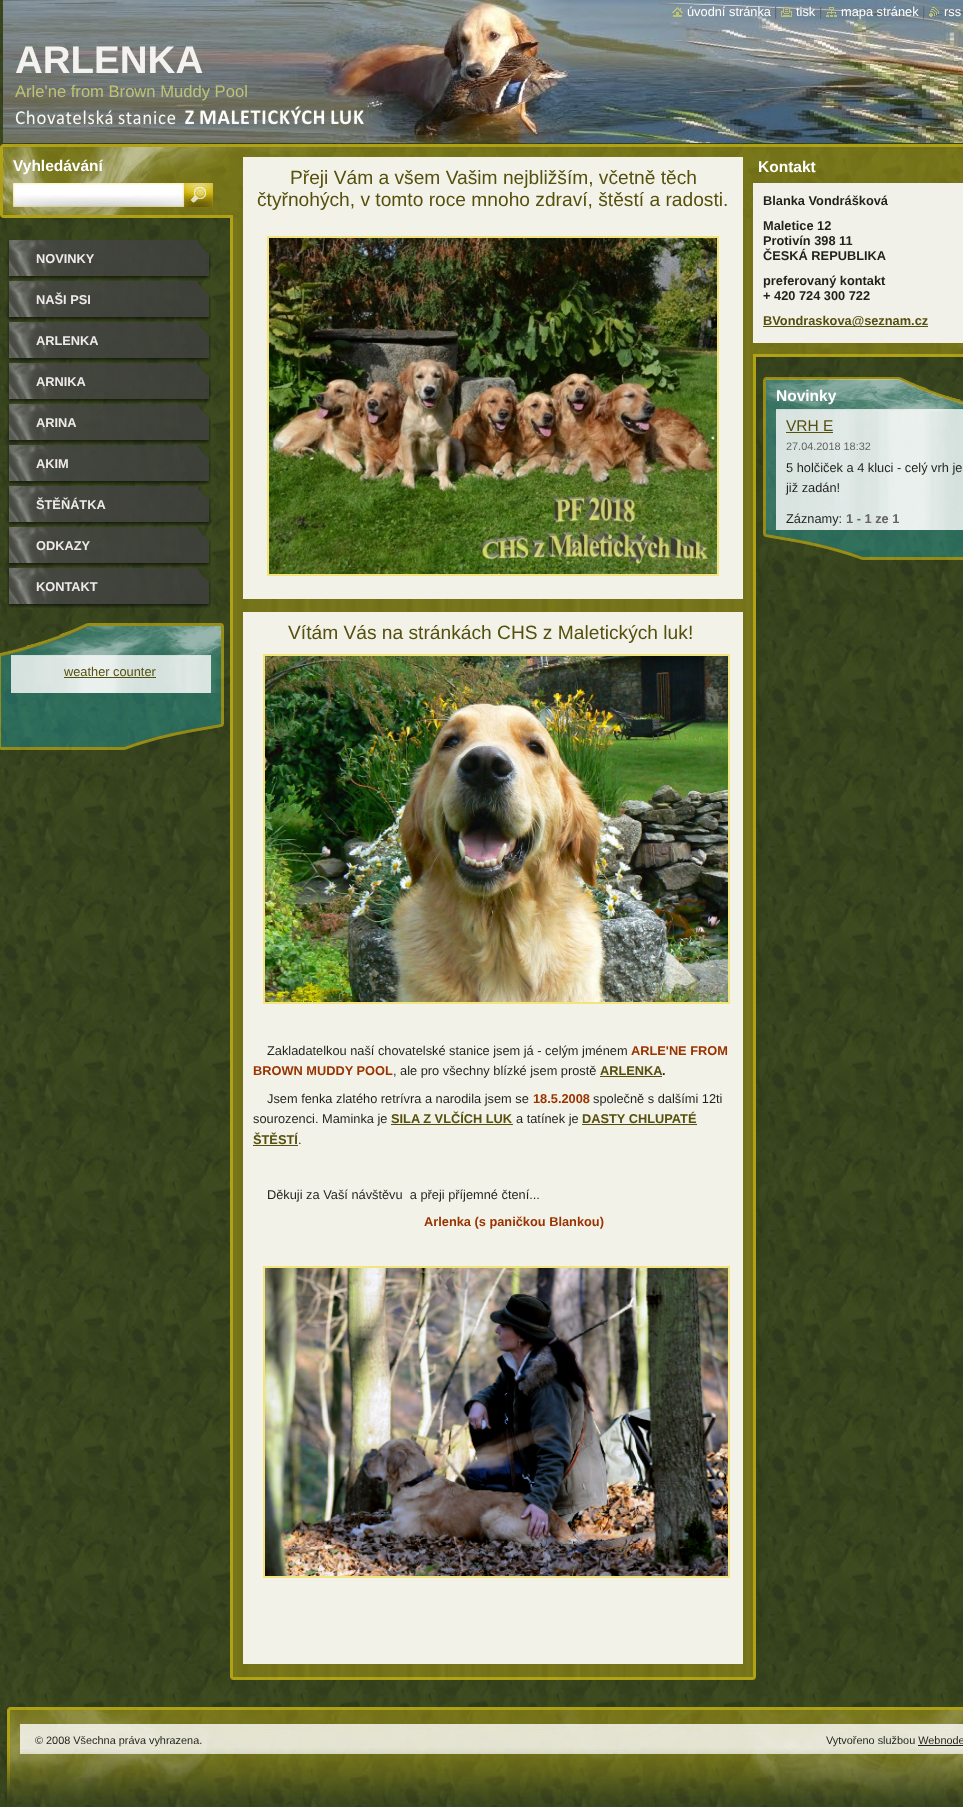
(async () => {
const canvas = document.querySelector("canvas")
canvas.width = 963
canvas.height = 1807
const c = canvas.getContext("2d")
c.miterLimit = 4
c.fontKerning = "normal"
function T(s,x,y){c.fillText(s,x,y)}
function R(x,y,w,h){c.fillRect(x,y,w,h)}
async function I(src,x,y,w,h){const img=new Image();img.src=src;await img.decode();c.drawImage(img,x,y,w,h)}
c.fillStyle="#fff"
R(0,0,963,1807)
await I("1.png",0,0,963,1807)
await I("6.png",3,0,960,143)
await I("2.png",672,7,11,10)
c.font="12.8px Liberation Sans"
T("úvodní stránka",687,16)
c.fillStyle="#646464"
T("|",774,16)
await I("3.png",781,7,11,10)
c.fillStyle="#fff"
T("tisk",796,16)
c.fillStyle="#646464"
T("|",819,16)
await I("4.png",826,7,11,10)
c.fillStyle="#fff"
T("mapa stránek",841,16)
c.fillStyle="#646464"
T("|",922,16)
await I("5.png",929,7,10,10)
c.fillStyle="#fff"
T("rss",944,16)
c.font="bold 38.5px Liberation Sans"
c.fillStyle="#f3f2ef"
T("ARLENKA",15,73)
c.font="16.6px Liberation Sans"
c.fillStyle="#bfc273"
T("Arle'ne from Brown Muddy Pool",15,97)
await I("7.png",0,144,963,74)
c.font="bold 15.5px Liberation Sans"
c.fillStyle="#fff"
T("Vyhledávání",13,171)
await I("8.png",13,183,171,24)
await I("9.png",184,183,29,24)
await I("10.png",230,218,526,1459)
await I("11.png",230,144,526,74)
c.fillStyle="#f2f2e9"
R(243,157,500,442)
c.font="19.2px Liberation Sans"
c.fillStyle="#56500d"
T("Přeji Vám a všem Vašim nejbližším, včetně těch",290,184)
T("čtyřnohých, v tomto roce mnoho zdraví, štěstí a radosti.",257,206)
c.strokeStyle="#f3e47c"
c.lineWidth=2
c.strokeRect(268,237,450,338)
await I("12.png",269,238,448,336)
c.fillStyle="#f2f2e9"
R(243,612,500,1052)
c.fillStyle="#56500d"
T("Vítám Vás na stránkách CHS z Maletických luk!",288,639)
c.strokeRect(264,655,465,348)
await I("13.png",265,656,463,346)
c.font="12.8px Liberation Sans"
c.fillStyle="#1f221c"
T("Zakladatelkou naší chovatelské stanice jsem já - celým jménem",267,1055)
c.font="bold 12.8px Liberation Sans"
c.fillStyle="#930"
T("ARLE'NE FROM",631,1055)
T("BROWN MUDDY POOL",253,1075)
c.font="12.8px Liberation Sans"
c.fillStyle="#1f221c"
T(", ale pro všechny blízké jsem prostě",393,1075)
c.font="bold 12.8px Liberation Sans"
c.fillStyle="#56500d"
T("ARLENKA",600,1075)
c.fillStyle="#1f221c"
T(".",662,1075)
c.fillStyle="#56500d"
R(600,1076,62,1)
c.font="12.8px Liberation Sans"
c.fillStyle="#1f221c"
T("Jsem fenka zlatého retrívra a narodila jsem se",267,1103)
c.font="bold 12.8px Liberation Sans"
c.fillStyle="#930"
T("18.5.2008",533,1103)
c.font="12.8px Liberation Sans"
c.fillStyle="#1f221c"
T("společně s dalšími 12ti",593,1103)
T("sourozenci. Maminka je",253,1123)
c.font="bold 12.8px Liberation Sans"
c.fillStyle="#56500d"
T("SILA Z VLČÍCH LUK",391,1123)
R(391,1124,122,1)
c.font="12.8px Liberation Sans"
c.fillStyle="#1f221c"
T("a tatínek je",516,1123)
c.font="bold 12.8px Liberation Sans"
c.fillStyle="#56500d"
T("DASTY CHLUPATÉ",582,1123)
R(582,1124,115,1)
T("ŠTĚSTÍ",253,1144)
R(253,1145,45,1)
c.font="12.8px Liberation Sans"
c.fillStyle="#1f221c"
T(".",298,1144)
T("Děkuji za Vaší návštěvu  a přeji příjemné čtení...",267,1199)
c.font="bold 12.8px Liberation Sans"
c.fillStyle="#930"
T("Arlenka (s paničkou Blankou)",424,1226)
c.strokeRect(264,1267,465,310)
await I("14.png",265,1268,463,308)
await I("15.png",230,1677,526,3)
c.font="bold 15.5px Liberation Sans"
c.fillStyle="#fff"
T("Kontakt",758,172)
c.fillStyle="#f1f1e9"
R(753,183,210,160)
c.font="bold 12.8px Liberation Sans"
c.fillStyle="#1f221c"
T("Blanka Vondrášková",763,205)
T("Maletice 12",763,230)
T("Protivín 398 11",763,245)
T("ČESKÁ REPUBLIKA",763,260)
T("preferovaný kontakt",763,285)
T("+ 420 724 300 722",763,300)
c.fillStyle="#56500d"
R(763,326,165,1)
T("BVondraskova@seznam.cz",763,325)
await I("16.png",753,343,210,14)
await I("17.png",763,377,200,34)
c.font="bold 15.5px Liberation Sans"
c.fillStyle="#fff"
T("Novinky",776,401)
await I("18.png",763,411,200,119)
c.font="15.5px Liberation Sans"
c.fillStyle="#56500d"
T("VRH E",786,431)
R(786,432,47,1)
c.font="10.9px Liberation Sans"
c.fillStyle="#646464"
T("27.04.2018 18:32",786,450)
c.font="12.8px Liberation Sans"
c.fillStyle="#1f221c"
T("5 holčiček a 4 kluci - celý vrh je",786,472)
T("již zadán!",786,492)
T("Záznamy:",786,523)
c.font="bold 12.8px Liberation Sans"
c.fillStyle="#646464"
T("1 - 1 ze 1",846,523)
await I("19.png",763,530,200,30)
await I("20.png",7,240,204,40)
c.fillStyle="#eeeaea"
T("NOVINKY",36,263)
await I("21.png",7,281,204,40)
T("NAŠI PSI",36,304)
await I("22.png",7,322,204,40)
T("ARLENKA",36,345)
await I("23.png",7,363,204,40)
T("ARNIKA",36,386)
await I("24.png",7,404,204,40)
T("ARINA",36,427)
await I("25.png",7,445,204,40)
T("AKIM",36,468)
await I("26.png",7,486,204,40)
T("ŠTĚŇÁTKA",36,509)
await I("27.png",7,527,204,40)
T("ODKAZY",36,550)
await I("28.png",7,568,204,40)
T("KONTAKT",36,591)
await I("29.png",0,623,224,35)
await I("30.png",0,658,224,35)
c.font="12.8px Liberation Sans"
c.fillStyle="#56500d"
T("weather counter",64,676)
R(64,677,92,1)
await I("31.png",0,693,224,57)
await I("32.png",7,1707,956,100)
c.font="10.9px Liberation Sans"
c.fillStyle="#1f221c"
T("© 2008 Všechna práva vyhrazena.",35,1744)
T("Vytvořeno službou Webnode",826,1744)
R(918,1745,45,1)
})()
